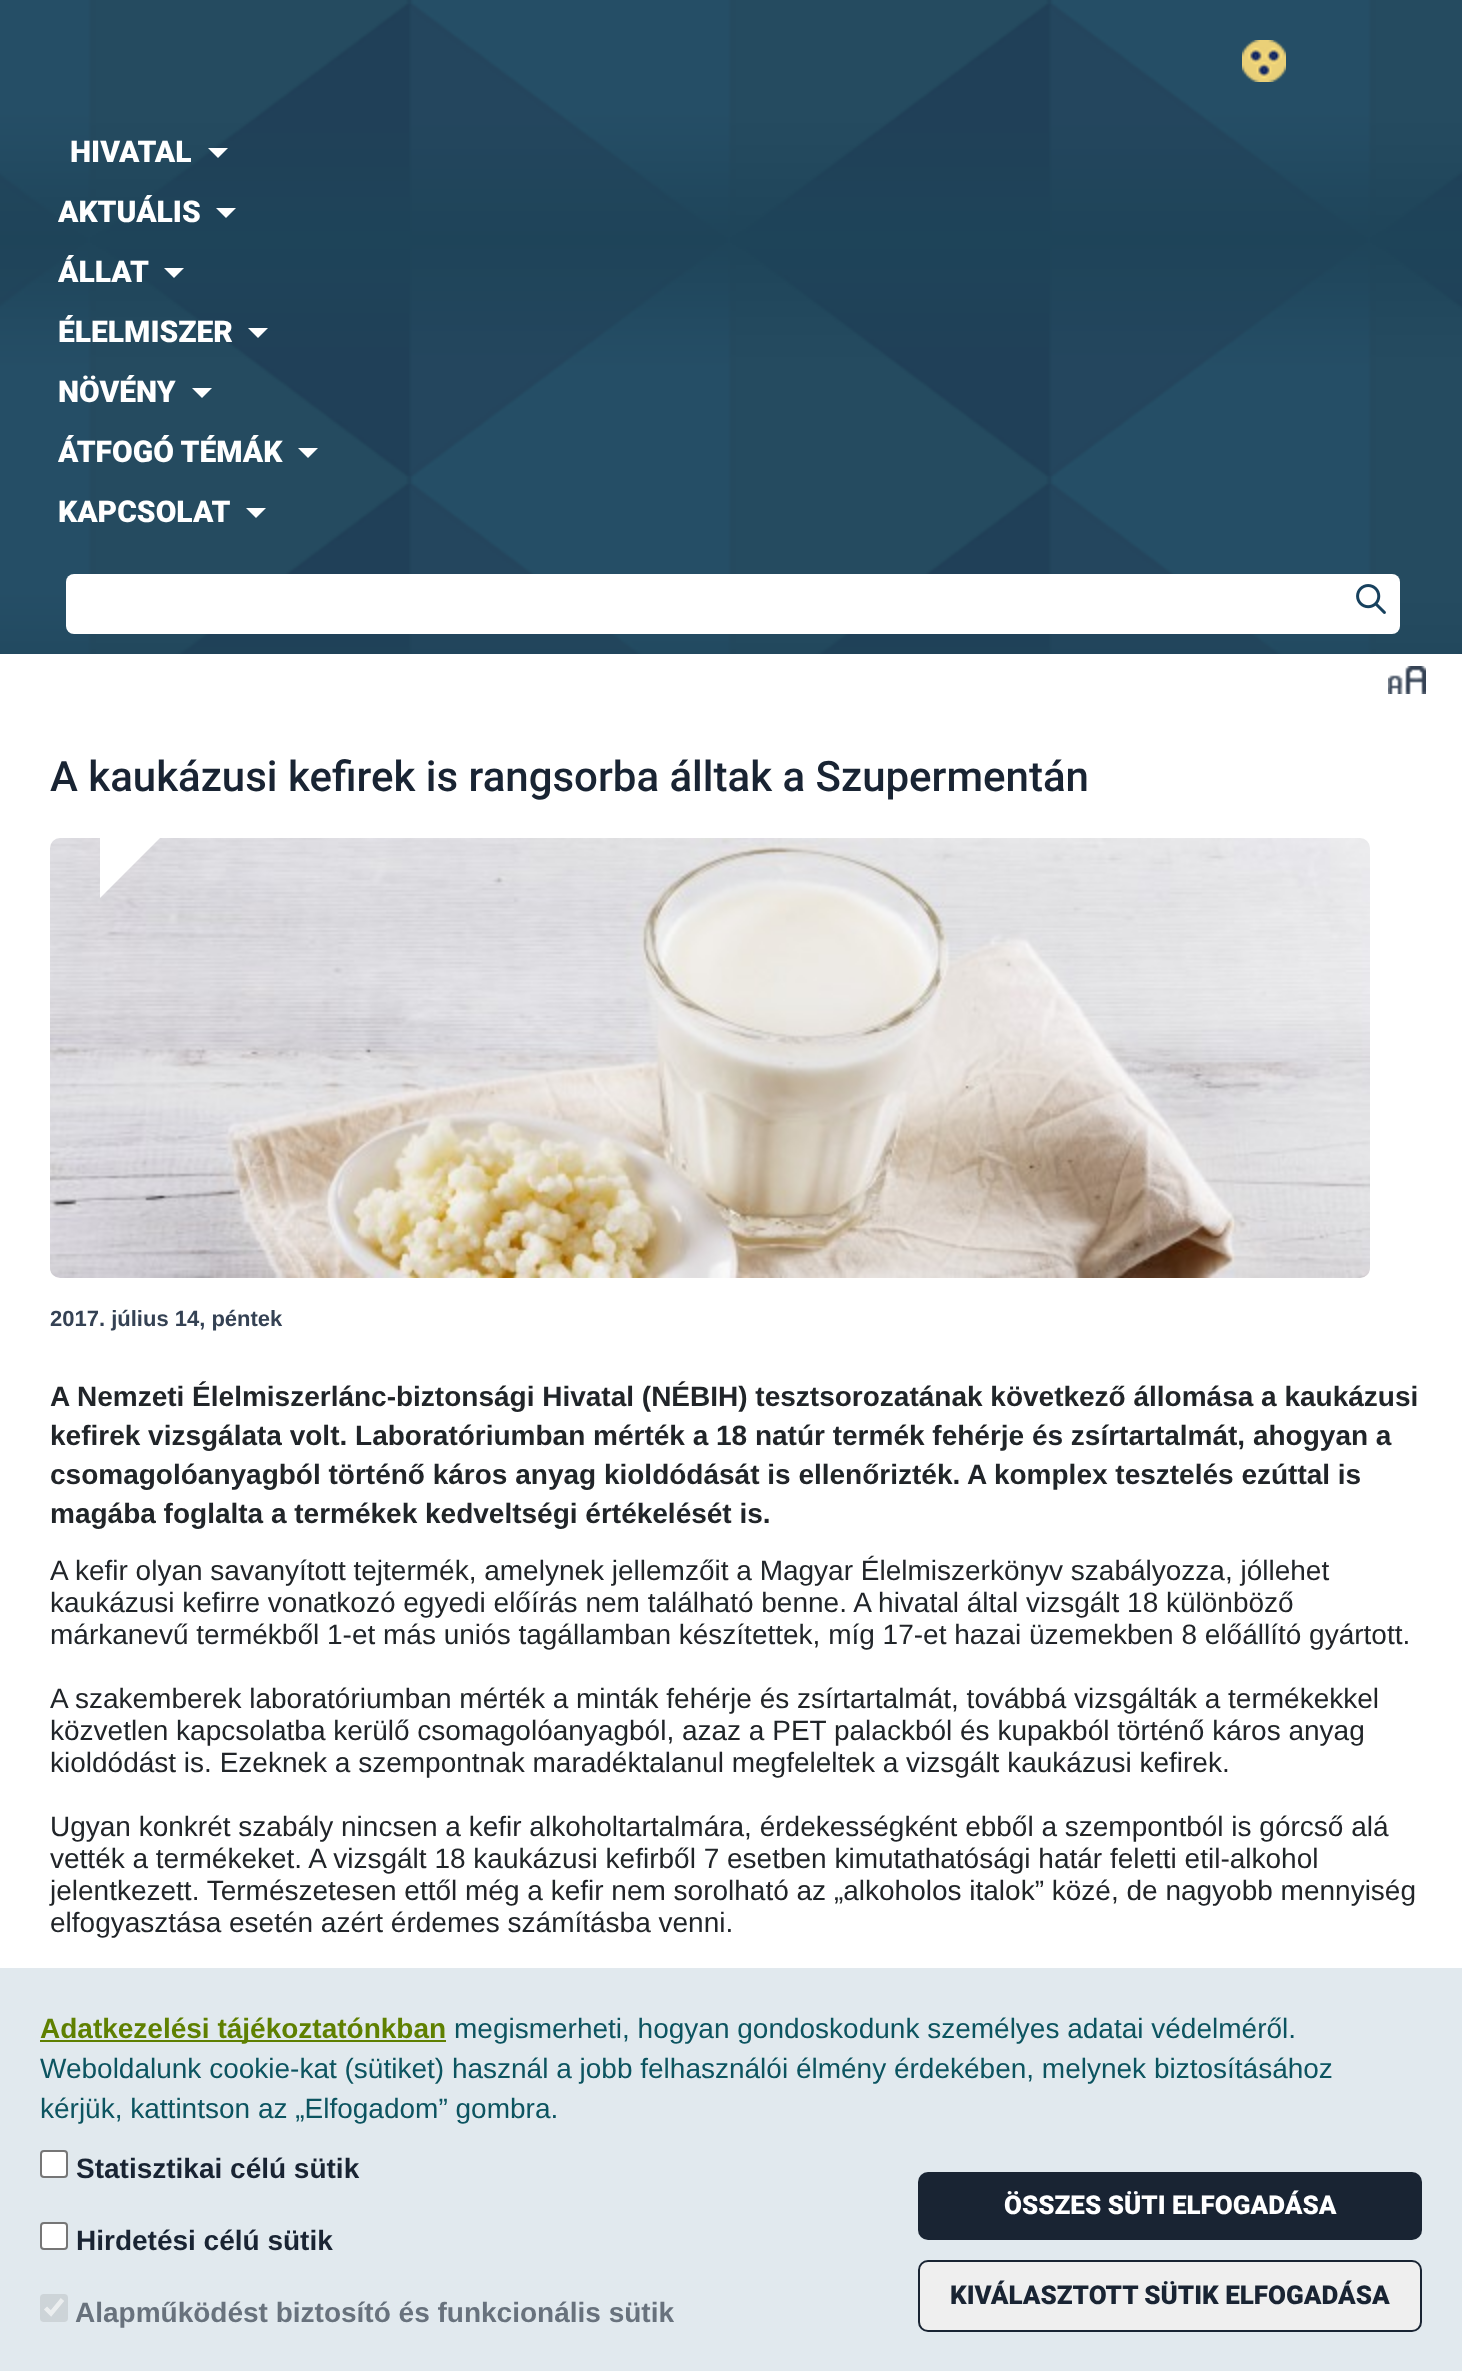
(async () => {
const canvas = document.querySelector("canvas")
canvas.width = 1462
canvas.height = 2371
const c = canvas.getContext("2d")
c.miterLimit = 4
c.fontKerning = "normal"
function T(s,x,y){c.fillText(s,x,y)}
function R(x,y,w,h){c.fillRect(x,y,w,h)}
function Q(x,y,w,h,r){c.beginPath();c.roundRect(x,y,w,h,r);c.fill()}
async function I(src,x,y,w,h){const img=new Image();img.src=src;await img.decode();c.drawImage(img,x,y,w,h)}
let path
c.fillStyle="#fff"
R(0,0,1462,2371)
c.fillStyle="#e1e9ee"
R(0,1968,1462,403)
await I("1.png",0,0,1462,654)
await I("2.png",1242,40,44,42)
c.font="900 30px Roboto"
c.fillStyle="#fff"
T("HIVATAL",70,162)
path = new Path2D("M208 148h20l-10 10z")
c.fill(path)
T("AKTUÁLIS",58,222)
path = new Path2D("M216 208h20l-10 10z")
c.fill(path)
T("ÁLLAT",58,282)
path = new Path2D("M164 268h20l-10 10z")
c.fill(path)
T("ÉLELMISZER",58,342)
path = new Path2D("M248 328h20l-10 10z")
c.fill(path)
T("NÖVÉNY",58,402)
path = new Path2D("M192 388h20l-10 10z")
c.fill(path)
T("ÁTFOGÓ TÉMÁK",58,462)
path = new Path2D("M298 448h20l-10 10z")
c.fill(path)
T("KAPCSOLAT",58,522)
path = new Path2D("M246 508h20l-10 10z")
c.fill(path)
Q(66,574,1334,60,8)
await I("3.png",1356,584,30,30)
await I("4.png",1388,666,38,28)
c.font="500 42px Roboto"
c.fillStyle="#192433"
T("A kaukázusi kefirek is rangsorba álltak a Szupermentán",50,791)
await I("5.png",50,838,1320,440)
c.fillStyle="#fff"
path = new Path2D("M100 838h60l-60 60z")
c.fill(path)
c.font="bold 22px Liberation Sans"
c.fillStyle="#354254"
T("2017. július 14, péntek",50,1326)
c.font="bold 28px Liberation Sans"
c.fillStyle="#212529"
T("A Nemzeti Élelmiszerlánc-biztonsági Hivatal (NÉBIH) tesztsorozatának következő állomása a kaukázusi",50,1406)
T("kefirek vizsgálata volt. Laboratóriumban mérték a 18 natúr termék fehérje és zsírtartalmát, ahogyan a",50,1445)
T("csomagolóanyagból történő káros anyag kioldódását is ellenőrizték. A komplex tesztelés ezúttal is",50,1484)
T("magába foglalta a termékek kedveltségi értékelését is.",50,1523)
c.font="28px Liberation Sans"
T("A kefir olyan savanyított tejtermék, amelynek jellemzőit a Magyar Élelmiszerkönyv szabályozza, jóllehet",50,1580)
T("kaukázusi kefirre vonatkozó egyedi előírás nem található benne. A hivatal által vizsgált 18 különböző",50,1612)
T("márkanevű termékből 1-et más uniós tagállamban készítettek, míg 17-et hazai üzemekben 8 előállító gyártott.",50,1644)
T("A szakemberek laboratóriumban mérték a minták fehérje és zsírtartalmát, továbbá vizsgálták a termékekkel",50,1708)
T("közvetlen kapcsolatba kerülő csomagolóanyagból, azaz a PET palackból és kupakból történő káros anyag",50,1740)
T("kioldódást is. Ezeknek a szempontnak maradéktalanul megfeleltek a vizsgált kaukázusi kefirek.",50,1772)
T("Ugyan konkrét szabály nincsen a kefir alkoholtartalmára, érdekességként ebből a szempontból is górcső alá",50,1836)
T("vették a termékeket. A vizsgált 18 kaukázusi kefirből 7 esetben kimutathatósági határ feletti etil-alkohol",50,1868)
T("jelentkezett. Természetesen ettől még a kefir nem sorolható az „alkoholos italok” közé, de nagyobb mennyiség",50,1900)
T("elfogyasztása esetén azért érdemes számításba venni.",50,1932)
c.fillStyle="#5f8001"
R(40,2040,406,2)
c.font="bold 28px Liberation Sans"
T("Adatkezelési tájékoztatónkban",40,2038)
c.font="28px Liberation Sans"
c.fillStyle="#0c5460"
T("megismerheti, hogyan gondoskodunk személyes adatai védelméről.",454,2038)
T("Weboldalunk cookie-kat (sütiket) használ a jobb felhasználói élmény érdekében, melynek biztosításához",40,2078)
T("kérjük, kattintson az „Elfogadom” gombra.",40,2118)
c.fillStyle="#fff"
c.beginPath()
c.roundRect(41,2151,26,26,3)
c.fill()
c.strokeStyle="#767676"
c.lineWidth=2
c.stroke()
c.font="bold 28px Liberation Sans"
c.fillStyle="#192433"
T("Statisztikai célú sütik",76,2178)
c.fillStyle="#fff"
c.beginPath()
c.roundRect(41,2223,26,26,3)
c.fill()
c.stroke()
c.fillStyle="#192433"
T("Hirdetési célú sütik",76,2250)
c.fillStyle="#7676762e"
Q(40,2294,28,28,4)
path = new Path2D("M45.5 2308l5.5 5.5l11.5-14")
c.strokeStyle="#ffffff99"
c.lineWidth=4.5
c.stroke(path)
c.fillStyle="#68727d"
T("Alapműködést biztosító és funkcionális sütik",75,2322)
c.fillStyle="#192433"
Q(918,2172,504,68,10)
c.font="900 26px Roboto"
c.fillStyle="#fff"
T("ÖSSZES SÜTI ELFOGADÁSA",1004,2214)
c.fillStyle="#efefef"
c.beginPath()
c.roundRect(919,2261,502,70,9)
c.fill()
c.strokeStyle="#192433"
c.lineWidth=2
c.stroke()
c.fillStyle="#192433"
T("KIVÁLASZTOTT SÜTIK ELFOGADÁSA",950,2304)
})()
